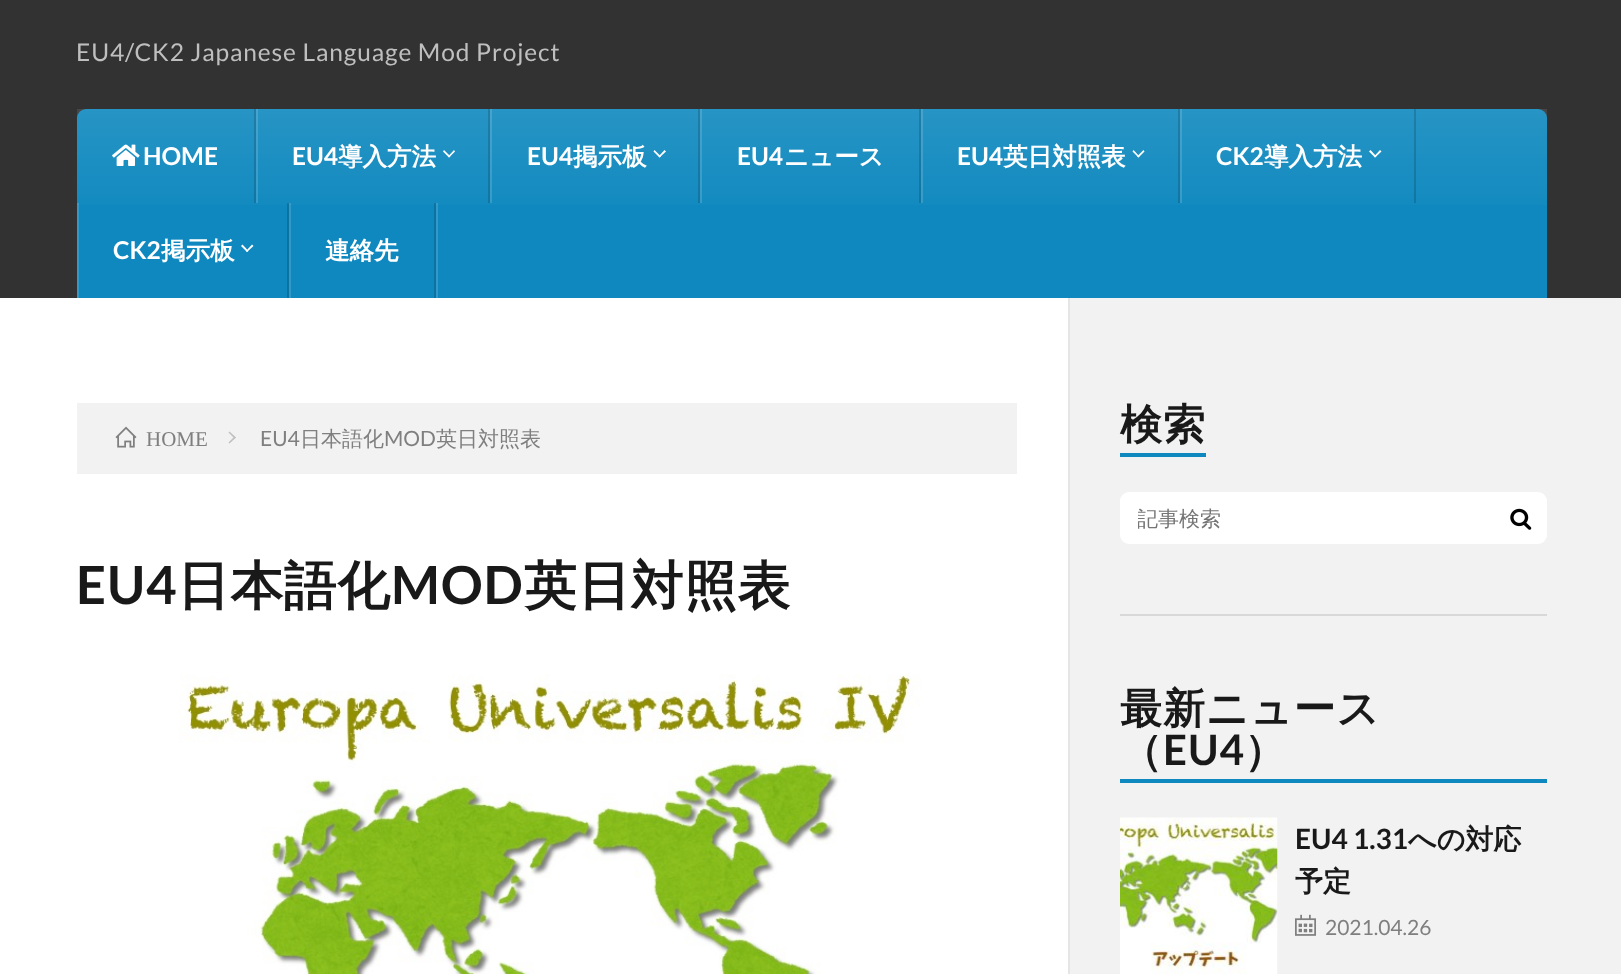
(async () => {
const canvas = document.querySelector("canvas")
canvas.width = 1621
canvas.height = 974
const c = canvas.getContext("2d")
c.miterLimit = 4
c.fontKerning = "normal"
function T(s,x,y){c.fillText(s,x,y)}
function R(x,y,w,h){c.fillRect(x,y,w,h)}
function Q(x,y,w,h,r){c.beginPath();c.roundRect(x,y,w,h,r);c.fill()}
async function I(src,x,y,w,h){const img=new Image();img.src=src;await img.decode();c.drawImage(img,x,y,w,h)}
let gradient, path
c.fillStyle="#f2f2f2"
R(0,0,1621,974)
c.fillStyle="#323232"
R(0,0,1621,298)
c.letterSpacing="0.9px"
c.font="24.5px Lato"
c.fillStyle="#bfbfbf"
T("EU4/CK2 Japanese Language Mod Project",76,61)
c.fillStyle="#0e88be"
c.beginPath()
c.roundRect(77,109,1470,189,[9,9,0,0])
c.fill()
gradient = c.createLinearGradient(812,298,812,109)
gradient.addColorStop(0,"#ffffff00")
gradient.addColorStop(.35,"#ffffff00")
gradient.addColorStop(1,"#ffffff1a")
c.fillStyle = gradient
R(77,109,1470,96)
c.fillStyle="#00000026"
R(254,109,2,94)
await I("1.png",112,144,28,22)
c.letterSpacing="0px"
c.font="bold 24.5px Lato"
c.fillStyle="#fff"
T("HOME",143,165)
c.fillStyle="#00000026"
R(488,109,2,94)
c.fillStyle="#ffffff26"
R(256,109,2,94)
c.fillStyle="#fff"
T("EU4",292,165)
c.font="bold 24.5px WenQuanYi Zen Hei"
T("導入方法",338,165)
path = new Path2D("M454 150l1 1.5l-6 6l-1-1z")
c.fill(path)
path = new Path2D("M444 150l6.5 6.5l-1.5 1l-6-6z")
c.fill(path)
c.fillStyle="#00000026"
R(698,109,2,94)
c.fillStyle="#ffffff26"
R(490,109,2,94)
c.font="bold 24.5px Lato"
c.fillStyle="#fff"
T("EU4",527,165)
c.font="bold 24.5px WenQuanYi Zen Hei"
T("掲示板",573,165)
path = new Path2D("M664.5 150l1.5 1.5l-6.5 6l-1-1z")
c.fill(path)
path = new Path2D("M654.5 150l6.5 6.5l-1.5 1l-6-6z")
c.fill(path)
c.fillStyle="#00000026"
R(919,109,2,94)
c.fillStyle="#ffffff26"
R(700,109,2,94)
c.font="bold 24.5px Lato"
c.fillStyle="#fff"
T("EU4",737,165)
c.font="bold 24.5px WenQuanYi Zen Hei"
T("ニュース",784,165)
c.fillStyle="#00000026"
R(1178,109,2,94)
c.fillStyle="#ffffff26"
R(921,109,2,94)
c.font="bold 24.5px Lato"
c.fillStyle="#fff"
T("EU4",957,165)
c.font="bold 24.5px WenQuanYi Zen Hei"
T("英日対照表",1003,165)
path = new Path2D("M1143.5 150l1 1.5l-6 6l-1.5-1z")
c.fill(path)
path = new Path2D("M1133.5 150l6 6.5l-1 1l-6-6z")
c.fill(path)
c.fillStyle="#00000026"
R(1414,109,2,94)
c.fillStyle="#ffffff26"
R(1180,109,2,94)
c.font="bold 24.5px Lato"
c.fillStyle="#fff"
T("CK2",1216,165)
c.font="bold 24.5px WenQuanYi Zen Hei"
T("導入方法",1264,165)
path = new Path2D("M1380 150l1.5 1.5l-6.5 6l-1-1z")
c.fill(path)
path = new Path2D("M1370.5 150l6 6.5l-1.5 1l-6-6z")
c.fill(path)
c.fillStyle="#00000026"
R(287,203,2,95)
c.fillStyle="#ffffff26"
R(77,203,2,95)
c.font="bold 24.5px Lato"
c.fillStyle="#fff"
T("CK2",113,259)
c.font="bold 24.5px WenQuanYi Zen Hei"
T("掲示板",161,259)
path = new Path2D("M252 244.5l1.5 1.5l-6.5 6l-1-1z")
c.fill(path)
path = new Path2D("M242.5 244.5l6 6.5l-1.5 1l-6-6z")
c.fill(path)
c.fillStyle="#00000026"
R(434,203,2,95)
c.fillStyle="#ffffff26"
R(289,203,2,95)
c.fillStyle="#fff"
T("連絡先",325,259)
c.fillStyle="#ffffff26"
R(436,203,2,95)
c.fillStyle="#fff"
R(0,298,1068,676)
c.fillStyle="#e5e5e5"
R(1068,298,2,676)
c.fillStyle="#f2f2f2"
R(77,403,940,71)
await I("2.png",115,426,22,22)
c.font="21px Liberation Serif"
c.fillStyle="#7f7f7f"
T("HOME",146,446)
c.fillStyle="#bfbfbf"
path = new Path2D("M229.5 431.5l6.5 6l-1.5 1l-6-6z")
c.fill(path)
path = new Path2D("M234.5 436.5l1.5 1l-6.5 6l-1-1z")
c.fill(path)
c.font="21px Lato"
c.fillStyle="#7f7f7f"
T("EU4",260,446)
c.font="500 21px WenQuanYi Zen Hei"
T("日本語化",300,446)
c.font="21px Lato"
T("MOD",384,446)
c.font="500 21px WenQuanYi Zen Hei"
T("英日対照表",436,446)
c.letterSpacing="0.9px"
c.font="bold 52.5px Lato"
c.fillStyle="#191919"
T("EU4",76,604)
c.font="bold 52.5px WenQuanYi Zen Hei"
T("日本語化",177,604)
c.font="bold 52.5px Lato"
T("MOD",391,604)
c.font="bold 52.5px WenQuanYi Zen Hei"
T("英日対照表",524,604)
await I("3.png",179,674,743,300)
c.fillStyle="#0e88be"
R(1120,453,86,4)
c.font="bold 42px WenQuanYi Zen Hei"
c.fillStyle="#191919"
T("検索",1120,439)
c.fillStyle="#fff"
Q(1120,492,427,52,9)
c.save()
c.beginPath()
c.rect(1138,506,339,30)
c.clip()
c.letterSpacing="0px"
c.font="500 21px WenQuanYi Zen Hei"
c.fillStyle="#757575"
T("記事検索",1137,526)
c.restore()
await I("4.png",1510,508,22,22)
c.fillStyle="#d8d8d8"
R(1120,614,427,2)
c.fillStyle="#0e88be"
R(1120,779,427,4)
c.fillStyle="#191919"
T("最新ニュース",1120,723)
T("（",1120,765)
c.font="bold 42px Lato"
T("EU4",1163,765)
c.font="bold 42px WenQuanYi Zen Hei"
T("）",1244,765)
await I("5.png",1120,817,158,157)
c.letterSpacing="0px"
c.font="bold 28px Lato"
T("EU4 1.31",1295,849)
c.font="bold 28px WenQuanYi Zen Hei"
T("への対応",1408,849)
T("予定",1295,891)
await I("6.png",1295,914,21,22)
c.font="21px Lato"
c.fillStyle="#7f7f7f"
T("2021.04.26",1325,935)
})()
